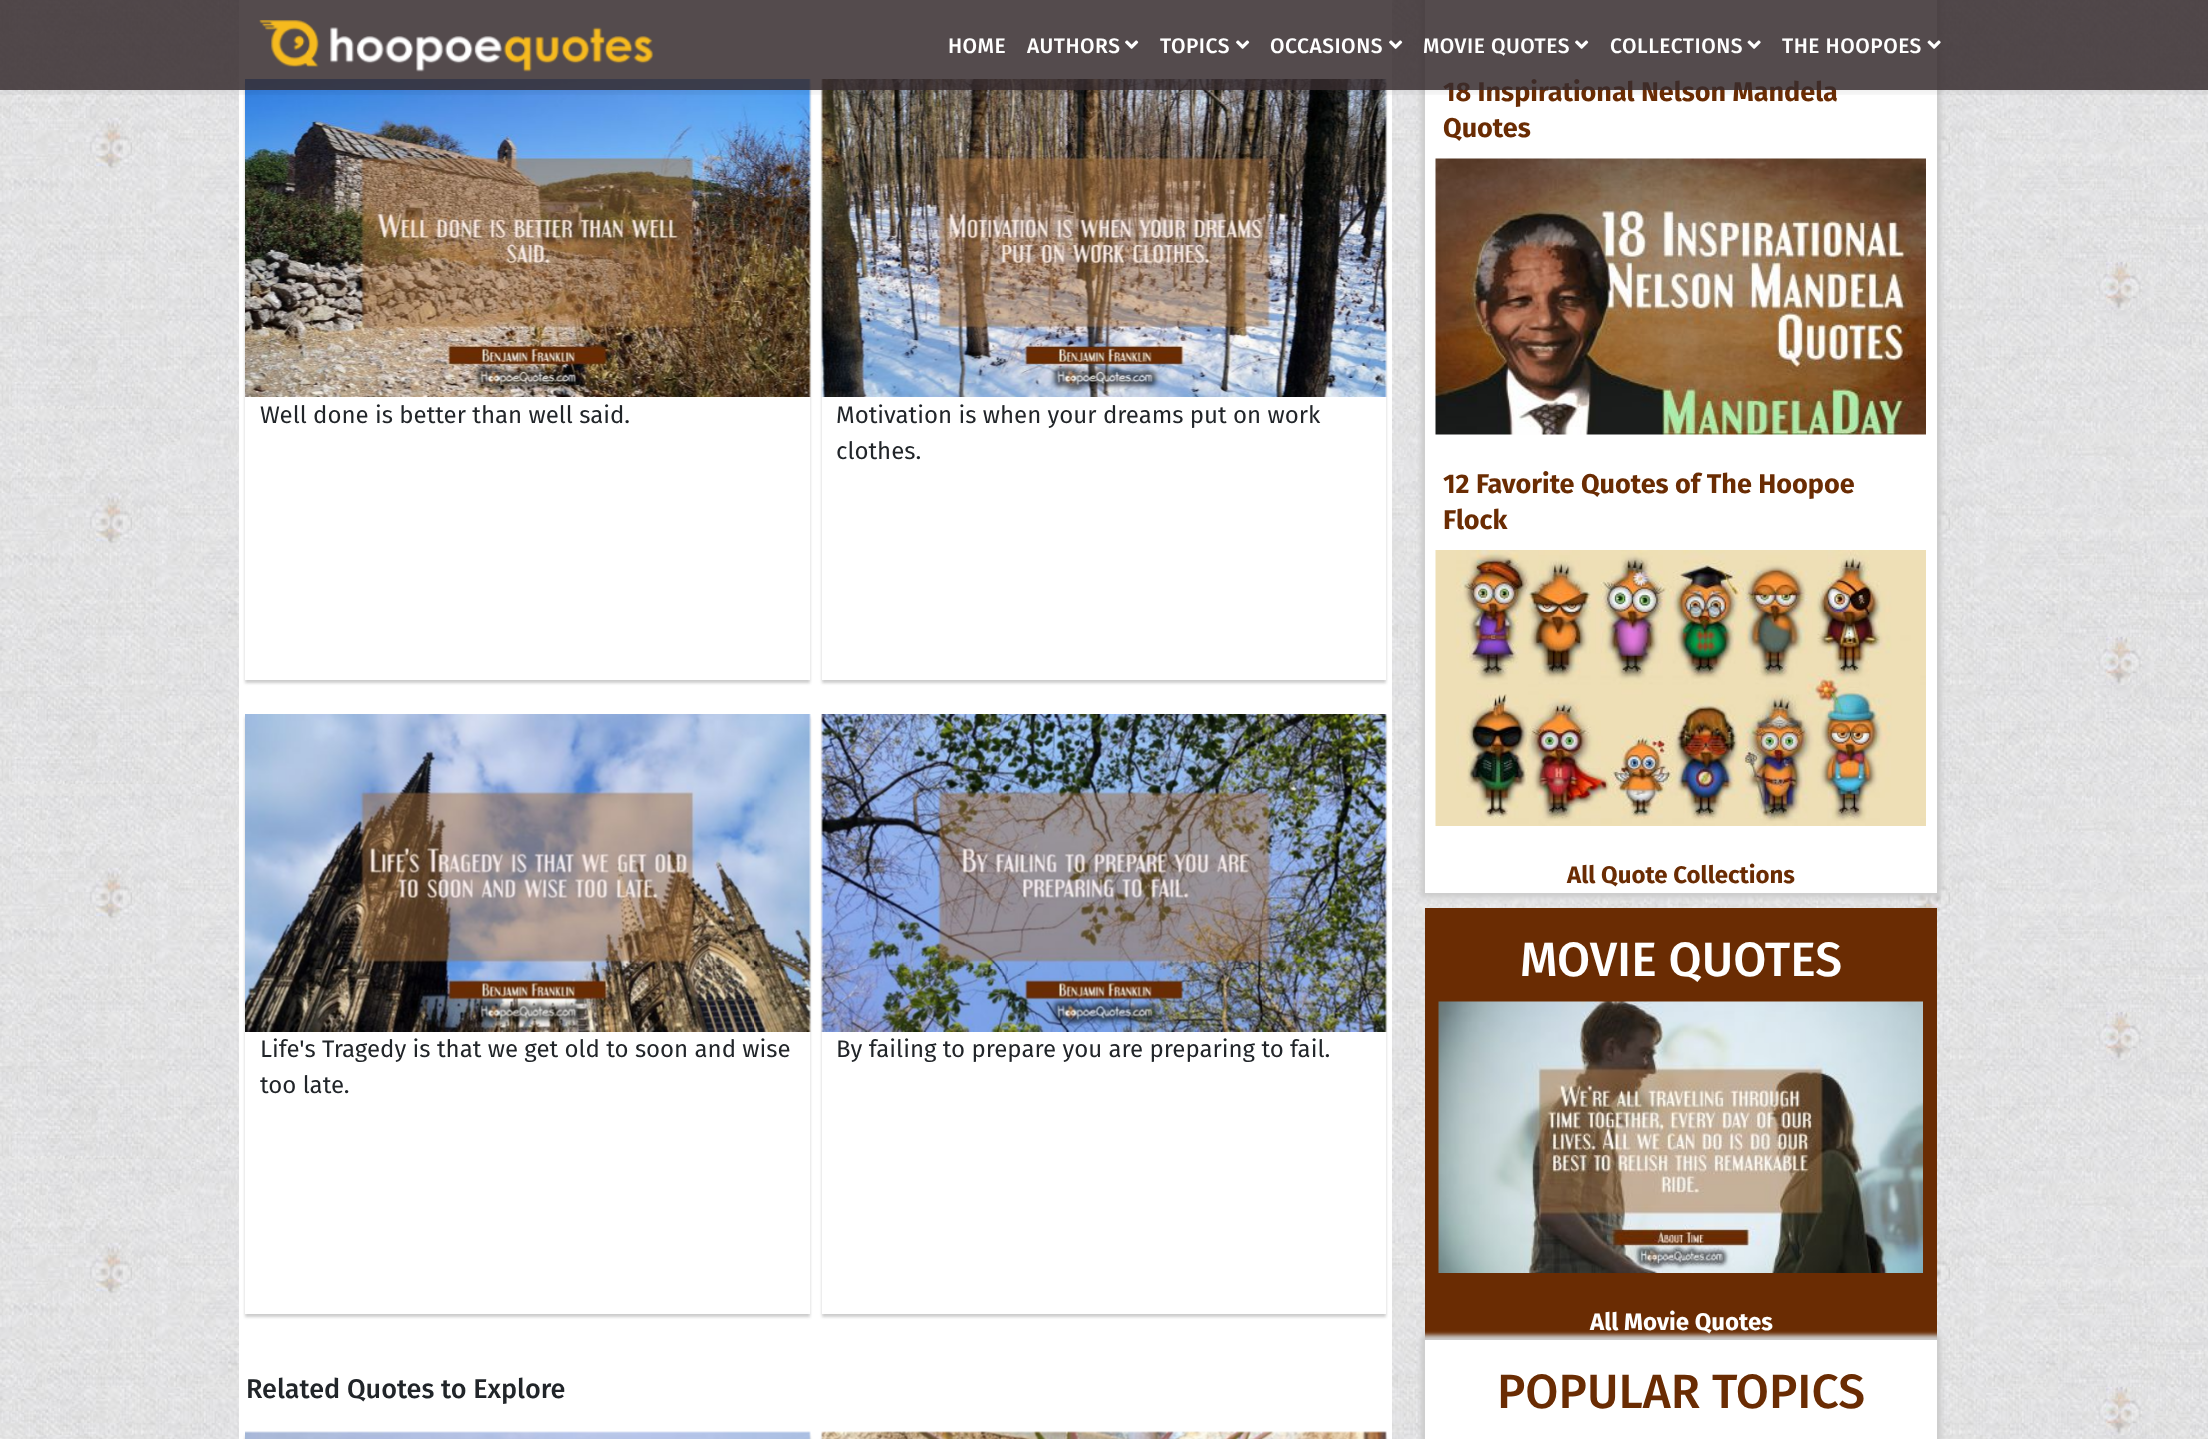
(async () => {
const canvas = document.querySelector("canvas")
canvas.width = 2208
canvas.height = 1439
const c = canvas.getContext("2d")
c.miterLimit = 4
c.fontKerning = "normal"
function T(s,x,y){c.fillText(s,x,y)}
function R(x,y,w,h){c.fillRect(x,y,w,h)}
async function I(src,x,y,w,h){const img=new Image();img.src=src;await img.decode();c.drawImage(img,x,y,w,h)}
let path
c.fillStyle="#fff"
R(0,0,2208,1439)
await I("1.png",0,0,2208,1439)
R(239,0,1153,1439)
c.fillStyle="#ccc"
c.filter="blur(1.5px)"
c.beginPath()
c.rect(245,83,565,600)
c.fill()
c.filter="none"
c.fillStyle="#fff"
R(245,81,565,599)
await I("8.png",245,79,566,318)
c.fillStyle="#ccc"
c.filter="blur(1.5px)"
c.beginPath()
c.rect(822,83,564,600)
c.fill()
c.filter="none"
c.fillStyle="#fff"
R(822,81,564,599)
await I("9.png",821,79,566,318)
c.fillStyle="#ccc"
c.filter="blur(2px)"
c.beginPath()
c.rect(1421,-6,520,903)
c.fill()
c.filter="none"
c.fillStyle="#fff"
R(1425,0,512,893)
c.save()
c.beginPath()
c.rect(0,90,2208,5)
c.clip()
c.fillStyle="#0000000d"
c.filter="blur(2px)"
c.beginPath()
c.rect(0,5,2208,90)
c.fill()
c.filter="none"
c.restore()
c.font="bold 27px Fira Sans"
c.fillStyle="#6a2c03"
T("18 Inspirational Nelson Mandela",1443,101)
c.fillStyle="#362c2ed9"
R(0,0,2208,90)
await I("2.png",259,20,395,52)
c.letterSpacing="0.5px"
c.font="500 21px Fira Sans"
c.fillStyle="#fff"
T("HOME",948,53)
T("AUTHORS",1027,53)
await I("3.png",1125,40,14,9)
T("TOPICS",1160,53)
await I("3.png",1236,40,14,9)
T("OCCASIONS",1270,53)
await I("4.png",1389,40,14,9)
T("MOVIE QUOTES",1423,53)
await I("5.png",1575,40,14,9)
T("COLLECTIONS",1610,53)
await I("6.png",1747,40,14,9)
T("THE HOOPOES",1782,53)
await I("7.png",1927,40,14,9)
c.letterSpacing="0px"
c.font="24px Fira Sans"
c.fillStyle="#212529"
T("Well done is better than well said.",260,423)
T("Motivation is when your dreams put on work",836,423)
T("clothes.",836,459)
c.save()
path = new Path2D("M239 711h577v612h-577zm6 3h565v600h-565z")
c.clip(path,"evenodd")
c.fillStyle="#ccc"
c.filter="blur(1.5px)"
c.beginPath()
c.rect(245,717,565,600)
c.fill()
c.filter="none"
c.restore()
await I("10.png",245,714,566,318)
T("Life's Tragedy is that we get old to soon and wise",260,1057)
T("too late.",260,1093)
c.save()
path = new Path2D("M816 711h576v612h-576zm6 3h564v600h-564z")
c.clip(path,"evenodd")
c.fillStyle="#ccc"
c.filter="blur(1.5px)"
c.beginPath()
c.rect(822,717,564,600)
c.fill()
c.filter="none"
c.restore()
await I("11.png",821,714,566,318)
T("By failing to prepare you are preparing to fail.",836,1057)
c.font="500 27px Fira Sans"
T("Related Quotes to Explore",246,1398)
c.fillStyle="#ccc"
c.filter="blur(1.5px)"
c.beginPath()
c.rect(245,1436,565,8)
c.fill()
c.filter="none"
await I("12.png",245,1431,566,8)
c.filter="blur(1.5px)"
c.beginPath()
c.rect(822,1436,564,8)
c.fill()
c.filter="none"
await I("13.png",821,1431,566,8)
c.font="bold 27px Fira Sans"
c.fillStyle="#6a2c03"
T("Quotes",1443,137)
await I("14.png",1435,158,491,277)
T("12 Favorite Quotes of The Hoopoe",1443,493)
T("Flock",1443,529)
await I("15.png",1435,550,491,276)
c.font="bold 24px Fira Sans"
T("All Quote Collections",1567,883)
R(1425,908,512,432)
c.font="500 48px Fira Sans"
c.fillStyle="#fff"
T("MOVIE QUOTES",1520,976)
await I("16.png",1438,1001,485,272)
c.fillStyle="#ccc"
c.filter="blur(2px)"
c.beginPath()
c.rect(1421,1335,520,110)
c.fill()
c.filter="none"
c.font="bold 24px Fira Sans"
c.fillStyle="#fff"
T("All Movie Quotes",1590,1330)
R(1425,1340,512,99)
c.font="500 48px Fira Sans"
c.fillStyle="#6a2c03"
T("POPULAR TOPICS",1497,1408)
})()
